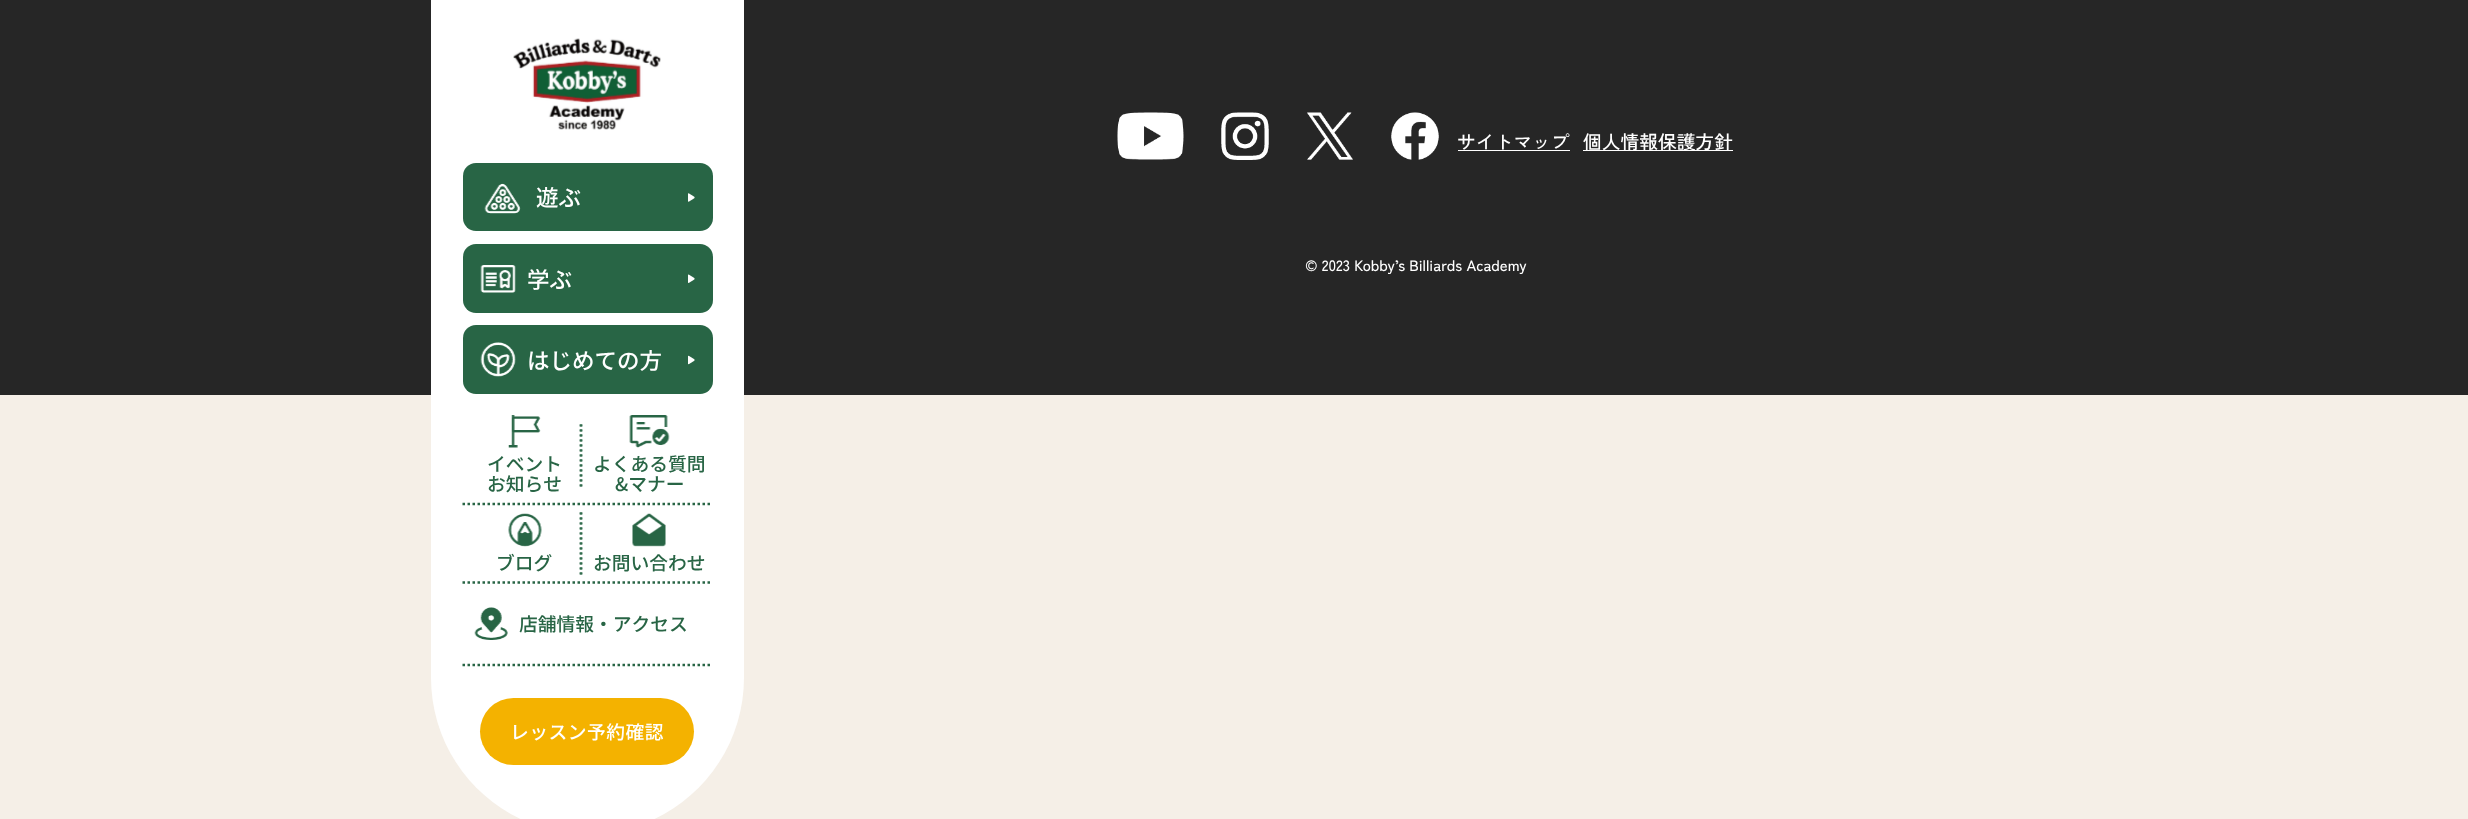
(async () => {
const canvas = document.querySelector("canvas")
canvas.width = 2468
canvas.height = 819
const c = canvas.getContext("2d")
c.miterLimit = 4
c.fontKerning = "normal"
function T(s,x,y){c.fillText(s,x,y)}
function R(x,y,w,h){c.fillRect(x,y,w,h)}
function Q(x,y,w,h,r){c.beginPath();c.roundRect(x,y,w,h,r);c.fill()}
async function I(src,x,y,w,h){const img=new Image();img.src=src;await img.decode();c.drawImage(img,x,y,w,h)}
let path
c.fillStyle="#f5efe7"
R(0,0,2468,819)
c.fillStyle="#262626"
R(0,0,2468,395)
c.fillStyle="#fff"
path = new Path2D("M431 0h313v677.5c0 86.5-70 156.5-156.5 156.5c-86.5 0-156.5-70-156.5-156.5z")
c.fill(path)
await I("1.png",513,38,148,92)
c.fillStyle="#286545"
Q(463,163,250,68,13)
await I("2.png",484,183,37,31)
c.font="500 22.5px Noto Sans JP"
c.fillStyle="#fff"
T("遊ぶ",536,206)
await I("3.png",688,193,7,9)
c.fillStyle="#286545"
Q(463,244,250,69,13)
await I("4.png",480,265,36,28)
c.fillStyle="#fff"
T("学ぶ",527,288)
await I("5.png",688,274,7,9)
c.fillStyle="#286545"
Q(463,325,250,69,13)
await I("6.png",480,342,36,35)
c.fillStyle="#fff"
T("はじめての方",527,369)
await I("7.png",688,355,7,10)
path = new Path2D("M462.5 504h250")
c.strokeStyle="#286545"
c.lineWidth=2.5
c.setLineDash([2.5,2.5])
c.stroke(path)
await I("8.png",508,415,33,33)
c.font="500 18.75px Noto Sans JP"
c.fillStyle="#286545"
T("イベント",487,471)
T("お知らせ",487,491)
await I("9.png",579,424,4,63)
await I("10.png",629,415,41,33)
T("よくある質問",593,471)
T("&マナー",615,491)
path = new Path2D("M462.5 582.5h250")
c.stroke(path)
await I("11.png",508,513,34,34)
T("ブログ",496,570)
await I("9.png",579,512,4,63)
await I("12.png",632,513,34,34)
T("お問い合わせ",593,570)
path = new Path2D("M462.5 665h250")
c.stroke(path)
await I("13.png",474,607,34,33)
T("店舗情報・アクセス",519,631)
c.fillStyle="#f4b200"
Q(480,698,214,67,33.5)
c.letterSpacing="0.5px"
c.fillStyle="#fff"
T("レッスン予約確認",510,739)
await I("14.png",1117,112,67,48)
await I("15.png",1221,112,48,48)
await I("16.png",1307,112,46,48)
await I("17.png",1391,112,48,48)
c.letterSpacing="0px"
c.font="500 18.75px Zen Kaku Gothic New"
T("サイトマップ",1457,149)
R(1458,150,112,1)
R(1583,150,150,1)
T("個人情報保護方針",1583,149)
c.font="500 15px Zen Kaku Gothic New"
T("©︎ 2023 Kobby’s Billiards Academy",1305,271)
})()
